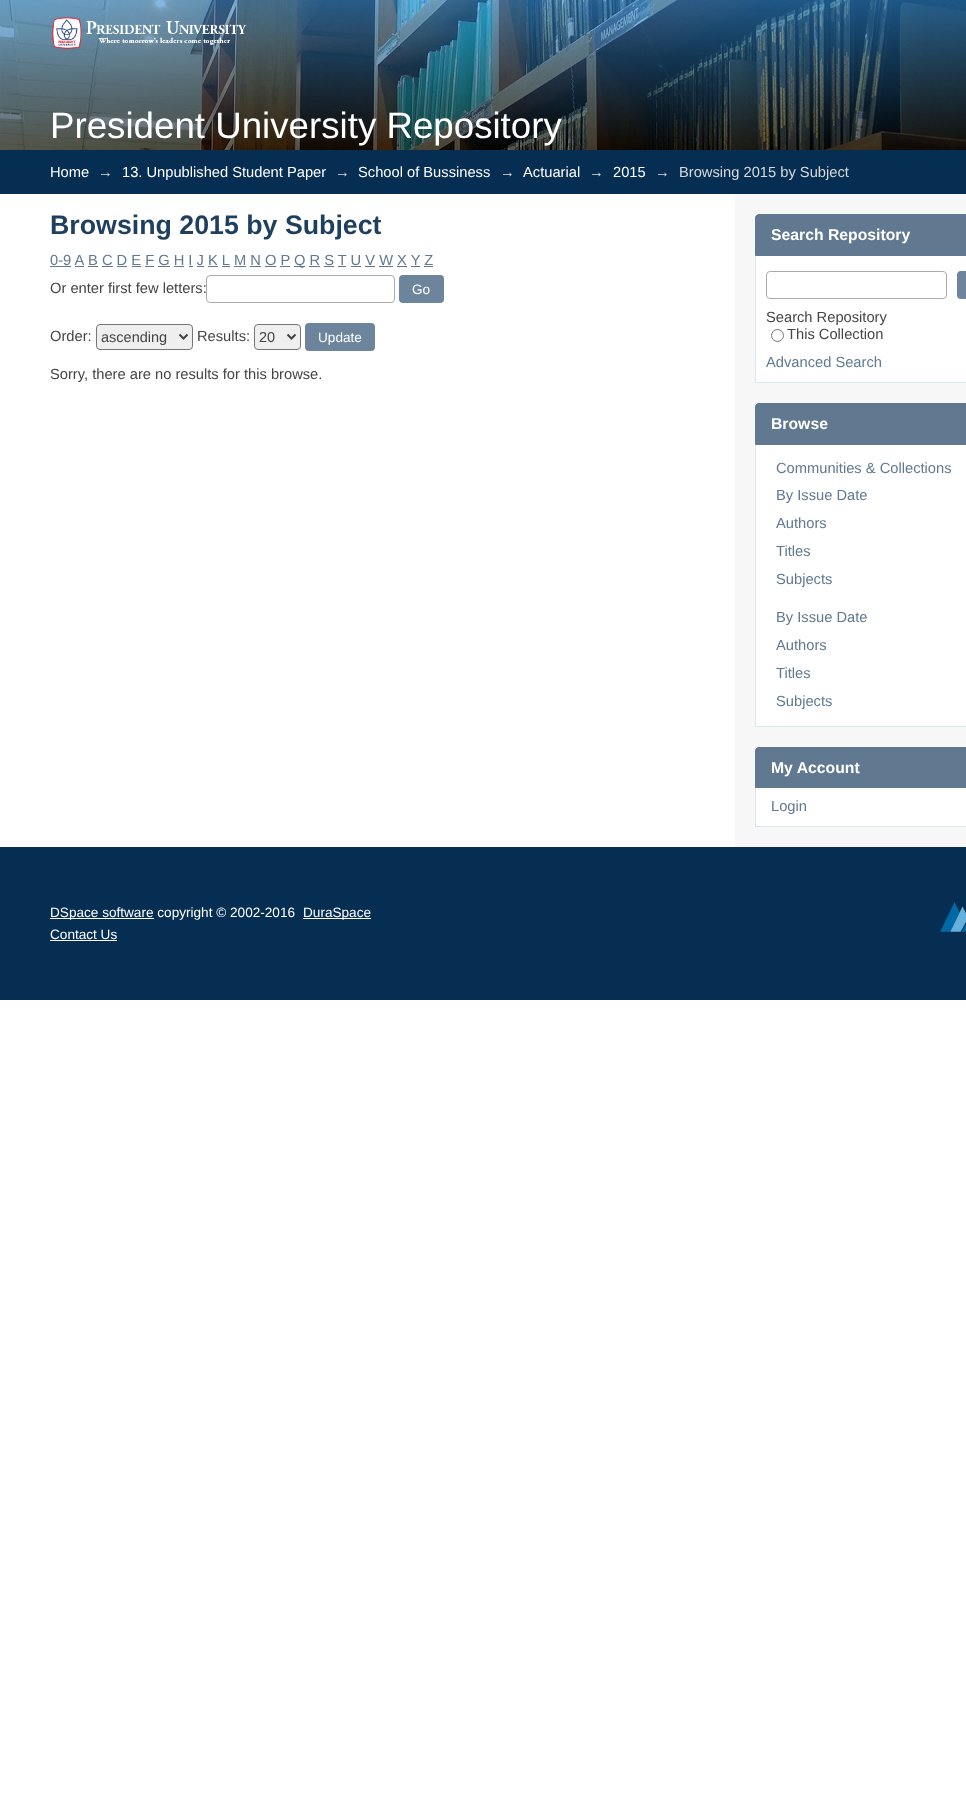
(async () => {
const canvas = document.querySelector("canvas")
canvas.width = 966
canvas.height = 1810
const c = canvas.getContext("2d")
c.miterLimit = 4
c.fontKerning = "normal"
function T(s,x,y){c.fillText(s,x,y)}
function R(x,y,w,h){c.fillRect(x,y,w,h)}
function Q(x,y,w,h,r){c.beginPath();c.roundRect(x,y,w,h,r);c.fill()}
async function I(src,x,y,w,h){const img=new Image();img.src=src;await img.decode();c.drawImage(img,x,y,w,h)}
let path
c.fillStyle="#fff"
R(0,0,966,1810)
await I("1.png",0,0,966,150)
await I("2.png",52,17,195,32)
c.font="36.7px Liberation Sans"
T("President University Repository",50,138)
c.fillStyle="#062d52"
R(0,150,966,44)
c.font="14.7px Liberation Sans"
c.fillStyle="#fff"
T("Home",50,177)
c.fillStyle="#dadada"
T("→",98,177)
c.fillStyle="#fff"
T("13. Unpublished Student Paper",122,177)
c.fillStyle="#dadada"
T("→",335,177)
c.fillStyle="#fff"
T("School of Bussiness",358,177)
c.fillStyle="#dadada"
T("→",500,177)
c.fillStyle="#fff"
T("Actuarial",523,177)
c.fillStyle="#dadada"
T("→",589,177)
c.fillStyle="#fff"
T("2015",613,177)
c.fillStyle="#dadada"
T("→",655,177)
T("Browsing 2015 by Subject",679,177)
c.font="bold 26.75px Liberation Sans"
c.fillStyle="#1f3f5e"
T("Browsing 2015 by Subject",50,234)
c.font="14.7px Liberation Sans"
c.fillStyle="#607890"
T("0-9 A",50,265)
R(50,266,21,1)
T("B C D E F G H I J K L",88,265)
R(88,266,10,1)
T("M N O P",234,265)
R(234,266,12,1)
R(294,266,11,1)
T("Q R S T U V W X Y Z",294,265)
R(75,266,9,1)
R(102,266,11,1)
R(117,266,10,1)
R(132,266,9,1)
R(145,266,9,1)
R(158,266,12,1)
R(174,266,10,1)
R(189,266,4,1)
R(197,266,7,1)
R(208,266,10,1)
R(222,266,8,1)
R(250,266,11,1)
R(265,266,11,1)
R(280,266,10,1)
R(309,266,11,1)
R(324,266,10,1)
R(338,266,8,1)
R(351,266,10,1)
R(365,266,10,1)
R(379,266,14,1)
R(397,266,10,1)
R(411,266,9,1)
R(424,266,9,1)
c.fillStyle="#444"
T("Or enter first few letters:",50,293)
c.beginPath()
c.roundRect(206.5,275.5,188,27,3.5)
c.strokeStyle="#aaa"
c.stroke()
c.fillStyle="#6d859c"
Q(399,275,45,28,4)
c.font="13.6px Liberation Sans"
c.fillStyle="#fff"
T("Go",412,294)
c.font="14.7px Liberation Sans"
c.fillStyle="#444"
T("Order:",50,341)
c.fillStyle="#efefef"
c.beginPath()
c.roundRect(96.5,324.5,96,25,3.5)
c.fill()
c.strokeStyle="#767676"
c.stroke()
path = new Path2D("M179.5 334.5l4 4l4-4")
c.strokeStyle="#444"
c.lineWidth=2
c.stroke(path)
c.font="14.5px Liberation Sans"
c.fillStyle="#444"
T("ascending",101,342)
c.font="14.7px Liberation Sans"
T("Results:",197,341)
c.fillStyle="#efefef"
c.beginPath()
c.roundRect(254.5,324.5,46,25,3.5)
c.fill()
c.strokeStyle="#767676"
c.lineWidth=1
c.stroke()
path = new Path2D("M287.5 334.5l4 4l4-4")
c.strokeStyle="#444"
c.lineWidth=2
c.stroke(path)
c.font="14.5px Liberation Sans"
c.fillStyle="#444"
T("20",259,342)
c.fillStyle="#6d859c"
Q(305,323,70,28,4)
c.font="13.6px Liberation Sans"
c.fillStyle="#fff"
T("Update",318,342)
c.font="14.7px Liberation Sans"
c.fillStyle="#444"
T("Sorry, there are no results for this browse.",50,379)
c.fillStyle="#f7f7f7"
R(735,194,231,653)
c.fillStyle="#607890"
path = new Path2D("M759 214.5h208c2 0 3.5 1.5 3.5 3.5v37.5h-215v-37.5c0-2 1.5-3.5 3.5-3.5z")
c.fill(path)
c.strokeStyle="#607890"
c.lineWidth=1
c.stroke(path)
c.font="bold 15.75px Liberation Sans"
c.fillStyle="#fff"
T("Search Repository",771,240)
R(756,256,210,126)
c.fillStyle="#d8e8eb"
R(755,382,211,1)
R(755,256,1,127)
c.beginPath()
c.roundRect(766.5,271.5,180,27,3.5)
c.strokeStyle="#aaa"
c.stroke()
c.fillStyle="#6d859c"
Q(957,271,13,28,4)
c.font="14.7px Liberation Sans"
c.fillStyle="#444"
T("Search Repository",766,322)
c.beginPath()
c.arc(777.5,335.5,6,0,7)
c.strokeStyle="#767676"
c.stroke()
T("This Collection",787,339)
c.fillStyle="#607890"
T("Advanced Search",766,367)
path = new Path2D("M759 403.5h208c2 0 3.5 1.5 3.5 3.5v37.5h-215v-37.5c0-2 1.5-3.5 3.5-3.5z")
c.fill(path)
c.strokeStyle="#607890"
c.stroke(path)
c.font="bold 15.75px Liberation Sans"
c.fillStyle="#fff"
T("Browse",771,429)
R(756,445,210,281)
c.fillStyle="#d8e8eb"
R(755,726,211,1)
R(755,445,1,282)
c.font="14.7px Liberation Sans"
c.fillStyle="#607890"
T("Communities & Collections",776,473)
T("By Issue Date",776,500)
T("Authors",776,528)
T("Titles",776,556)
T("Subjects",776,584)
T("By Issue Date",776,622)
T("Authors",776,650)
T("Titles",776,678)
T("Subjects",776,706)
path = new Path2D("M759 747.5h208c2 0 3.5 1.5 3.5 3.5v36.5h-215v-36.5c0-2 1.5-3.5 3.5-3.5z")
c.fill(path)
c.stroke(path)
c.font="bold 15.75px Liberation Sans"
c.fillStyle="#fff"
T("My Account",771,773)
R(756,788,210,38)
c.fillStyle="#d8e8eb"
R(755,826,211,1)
R(755,788,1,39)
c.font="14.7px Liberation Sans"
c.fillStyle="#607890"
T("Login",771,811)
c.fillStyle="#062d52"
R(0,847,966,153)
c.fillStyle="#fff"
R(50,918,104,1)
c.font="13.6px Liberation Sans"
T("DSpace software copyright © 2002-2016",50,917)
R(303,918,68,1)
T("DuraSpace",303,917)
await I("3.png",940,902,26,30)
T("Contact Us",50,939)
R(50,940,67,1)
})()
